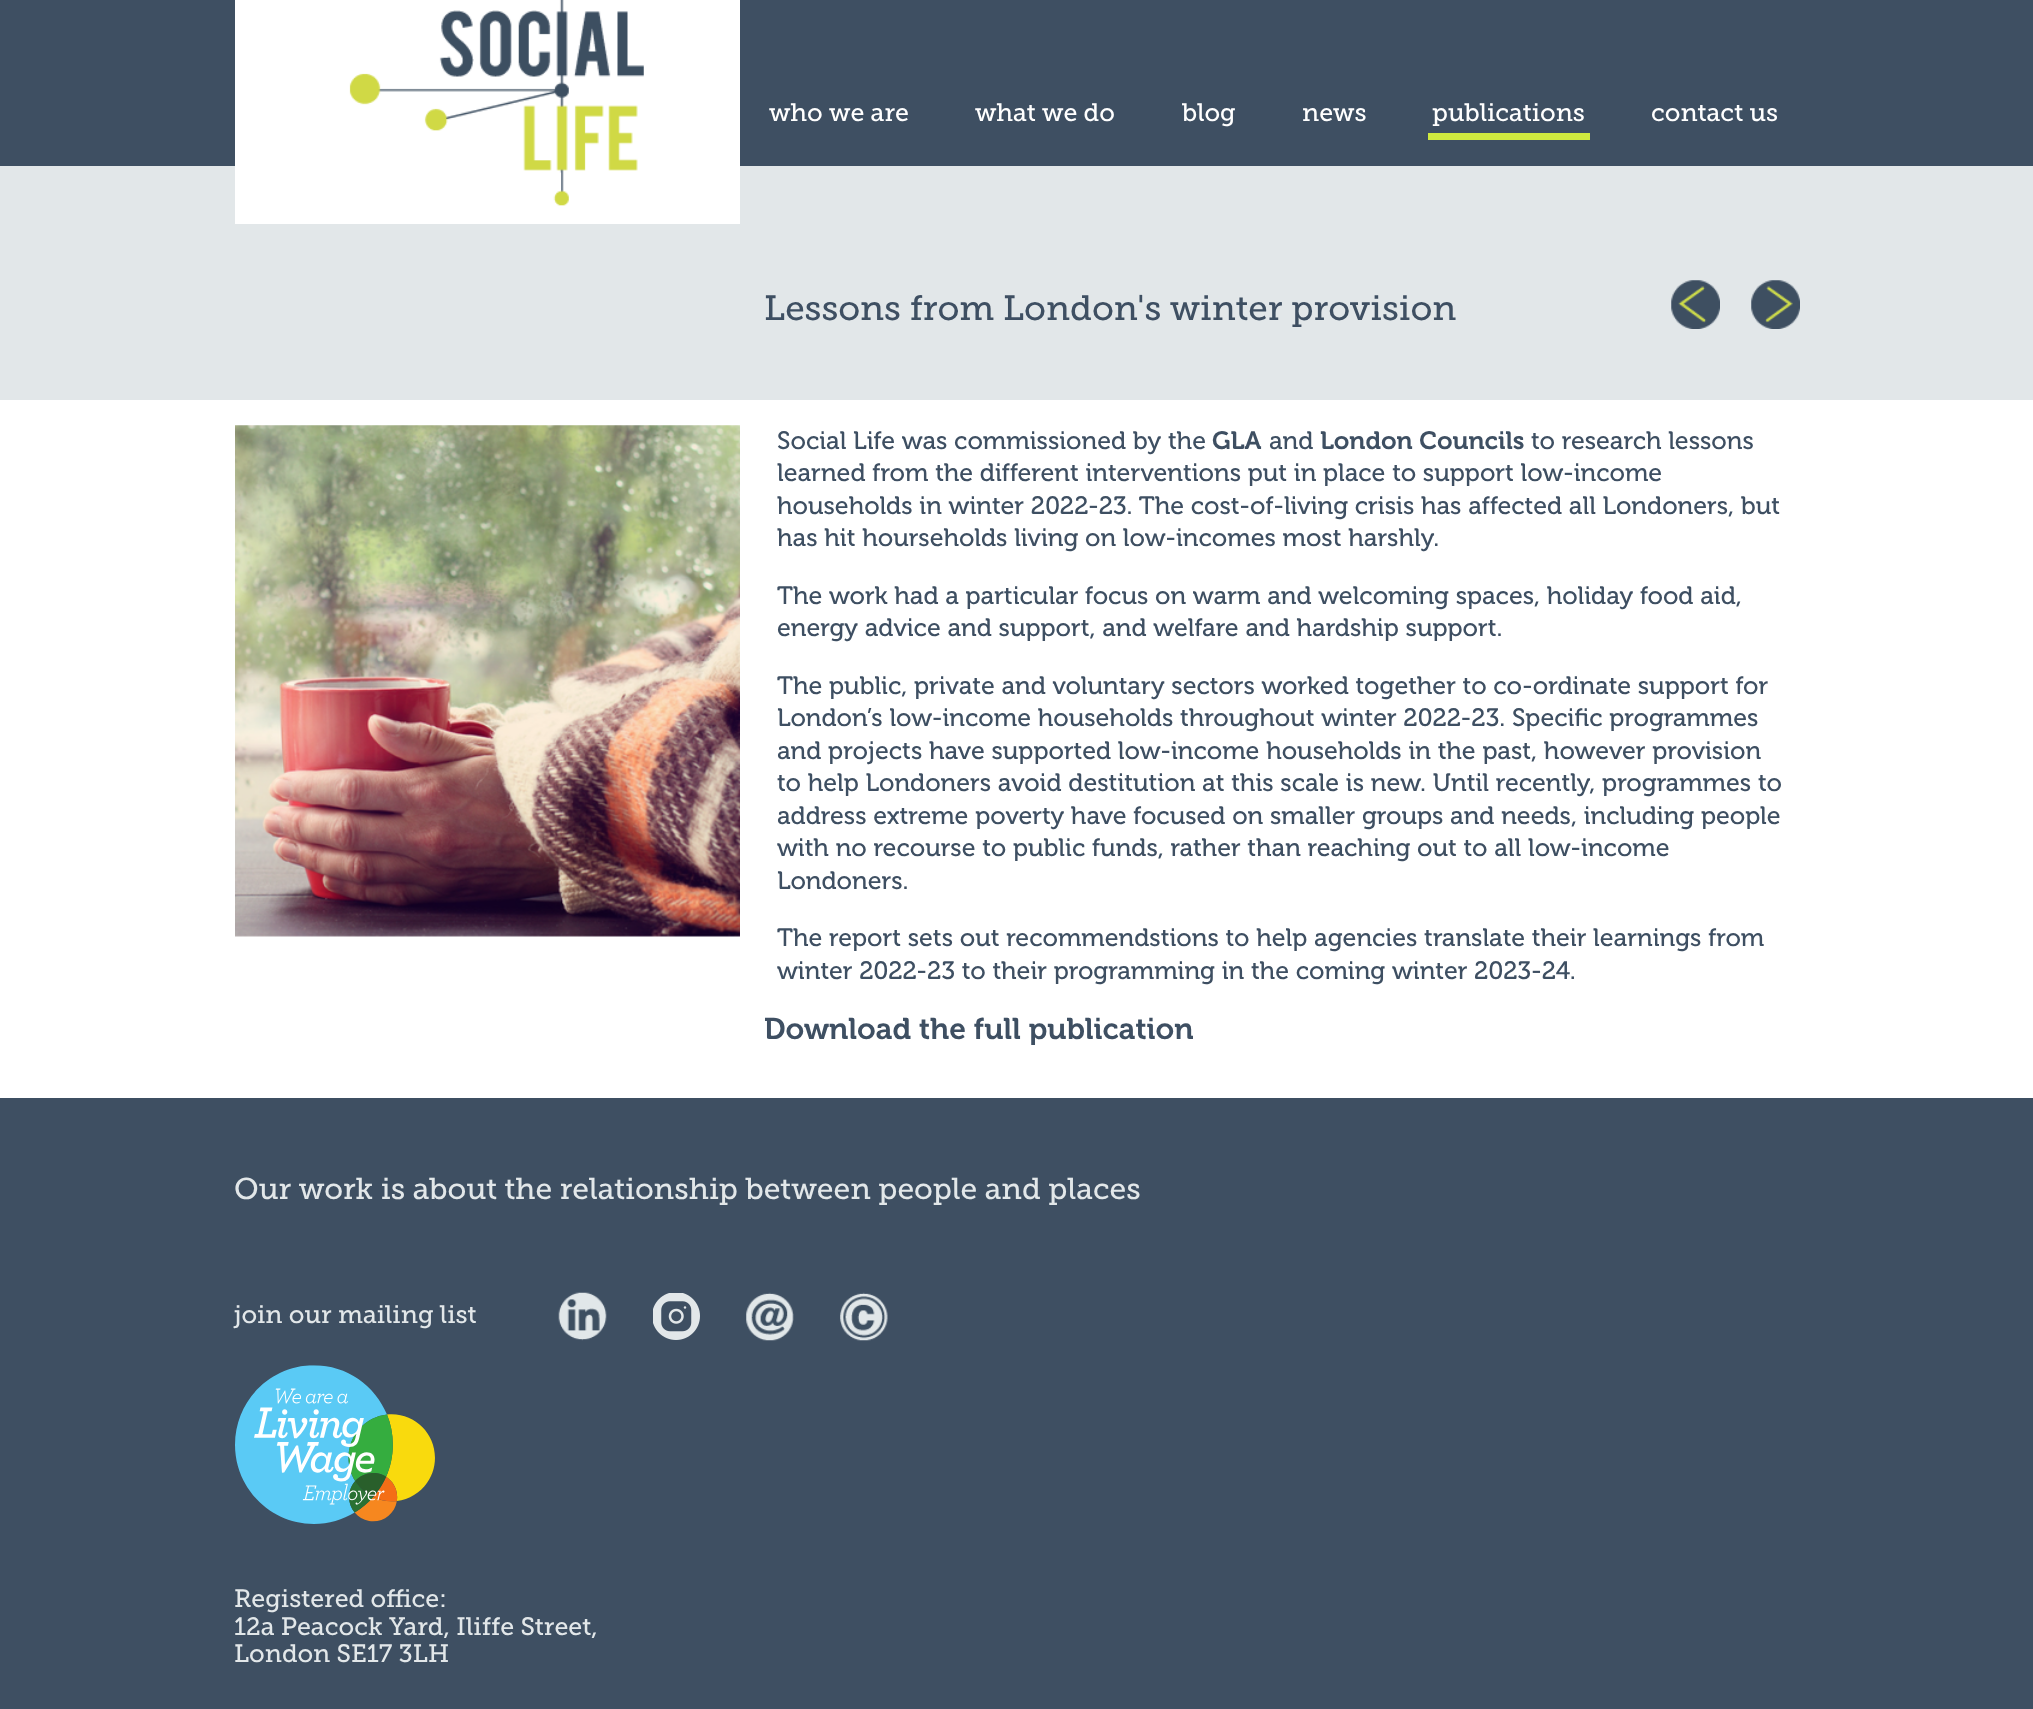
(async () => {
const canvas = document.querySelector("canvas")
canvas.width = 2033
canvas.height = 1709
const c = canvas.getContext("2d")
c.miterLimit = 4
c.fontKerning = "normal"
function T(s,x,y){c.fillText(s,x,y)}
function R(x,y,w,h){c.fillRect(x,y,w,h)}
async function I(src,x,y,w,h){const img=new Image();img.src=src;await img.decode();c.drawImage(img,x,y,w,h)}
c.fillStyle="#fff"
R(0,0,2033,1709)
c.fillStyle="#3e4f62"
R(0,0,2033,166)
c.fillStyle="#e2e7e9"
R(0,166,2033,234)
await I("1.png",235,0,505,224)
c.font="25px Museo Slab"
c.fillStyle="#fff"
T("who we are",769,121)
T("what we do",975,121)
T("blog",1182,121)
T("news",1302,121)
T("publications",1432,121)
c.fillStyle="#cfe93f"
R(1428,133,162,7)
c.fillStyle="#fff"
T("contact us",1651,121)
c.font="35px Museo Slab"
c.fillStyle="#3e4f62"
T("Lessons from London's winter provision",764,320)
await I("2.png",1671,280,49,49)
await I("3.png",1751,280,49,49)
await I("4.png",235,425,505,512)
c.font="25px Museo"
T("Social Life was commissioned by the",777,449)
c.font="600 25px Museo"
T("GLA",1212,449)
c.font="25px Museo"
T("and",1269,449)
c.font="600 25px Museo"
T("London Councils",1320,449)
c.font="25px Museo"
T("to research lessons",1531,449)
T("learned from the different interventions put in place to support low-income",777,481)
T("households in winter 2022-23. The cost-of-living crisis has affected all Londoners, but",777,514)
T("has hit hourseholds living on low-incomes most harshly.",777,546)
T("The work had a particular focus on warm and welcoming spaces, holiday food aid,",777,604)
T("energy advice and support, and welfare and hardship support.",777,636)
T("The public, private and voluntary sectors worked together to co-ordinate support for",777,694)
T("London’s low-income households throughout winter 2022-23. Specific programmes",777,726)
T("and projects have supported low-income households in the past, however provision",777,759)
T("to help Londoners avoid destitution at this scale is new. Until recently, programmes to",777,791)
T("address extreme poverty have focused on smaller groups and needs, including people",777,824)
T("with no recourse to public funds, rather than reaching out to all low-income",777,856)
T("Londoners.",777,889)
T("The report sets out recommendstions to help agencies translate their learnings from",777,946)
T("winter 2022-23 to their programming in the coming winter 2023-24.",777,979)
c.font="600 30px Museo"
T("Download the full publication",764,1039)
R(0,1098,2033,611)
c.font="30px Museo Slab"
c.fillStyle="#e2e7e9"
T("Our work is about the relationship between people and places",234,1199)
c.font="25px Museo Slab"
T("join our mailing list",234,1323)
await I("5.png",558,1292,49,49)
await I("6.png",653,1293,47,47)
await I("7.png",746,1292,48,49)
await I("8.png",840,1292,48,49)
await I("9.png",235,1365,200,159)
T("Registered office:",234,1607)
T("12a Peacock Yard, Iliffe Street,",234,1635)
T("London SE17 3LH",234,1662)
})()
